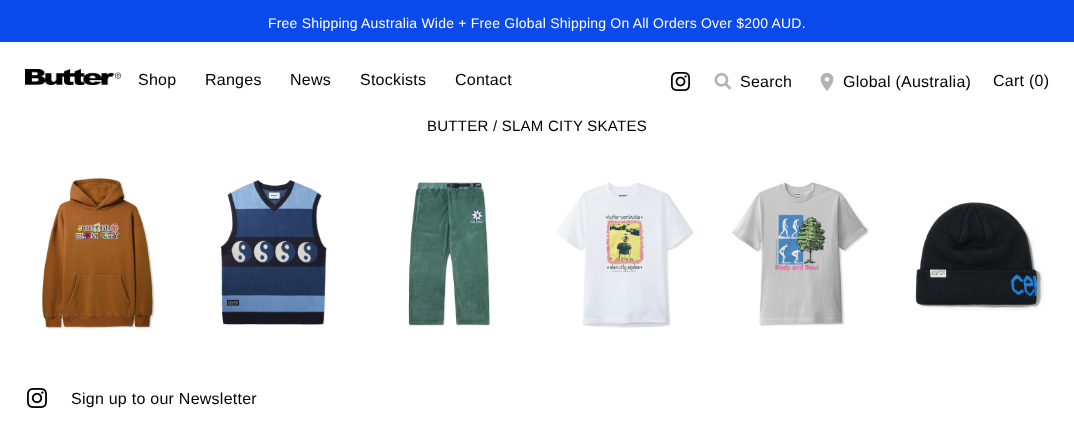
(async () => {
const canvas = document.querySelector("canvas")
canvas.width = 1074
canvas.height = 436
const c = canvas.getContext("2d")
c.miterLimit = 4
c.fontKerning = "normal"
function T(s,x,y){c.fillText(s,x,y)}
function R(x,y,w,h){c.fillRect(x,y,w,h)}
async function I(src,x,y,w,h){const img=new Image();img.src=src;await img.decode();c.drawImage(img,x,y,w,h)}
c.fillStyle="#fff"
R(0,0,1074,436)
c.fillStyle="#0a49ec"
R(0,0,1074,42)
c.letterSpacing="0.2px"
c.font="14px Liberation Sans"
c.fillStyle="#fff"
T("Free Shipping Australia Wide + Free Global Shipping On All Orders Over $200 AUD.",268,28)
await I("1.png",25,69,96,16)
c.letterSpacing="0.25px"
c.font="16px Liberation Sans"
c.fillStyle="#000"
T("Shop",138,85)
T("Ranges",205,85)
T("News",290,85)
T("Stockists",360,85)
T("Contact",455,85)
await I("2.png",671,72,19,19)
await I("3.png",714,73,18,17)
c.save()
c.beginPath()
c.rect(740,73,51,18)
c.clip()
T("Search",740,87)
c.restore()
await I("4.png",820,72,14,19)
T("Global (Australia)",843,87)
T("Cart (0)",993,86)
c.font="15px Liberation Sans"
T("BUTTER / SLAM CITY SKATES",427,131)
await I("5.png",42,177,113,152)
await I("6.png",220,179,108,146)
await I("7.png",408,182,83,144)
await I("8.png",556,182,138,146)
await I("9.png",731,182,138,144)
await I("10.png",915,202,129,109)
await I("11.png",27,388,20,20)
c.font="16px Liberation Sans"
T("Sign up to our Newsletter",71,404)
})()
